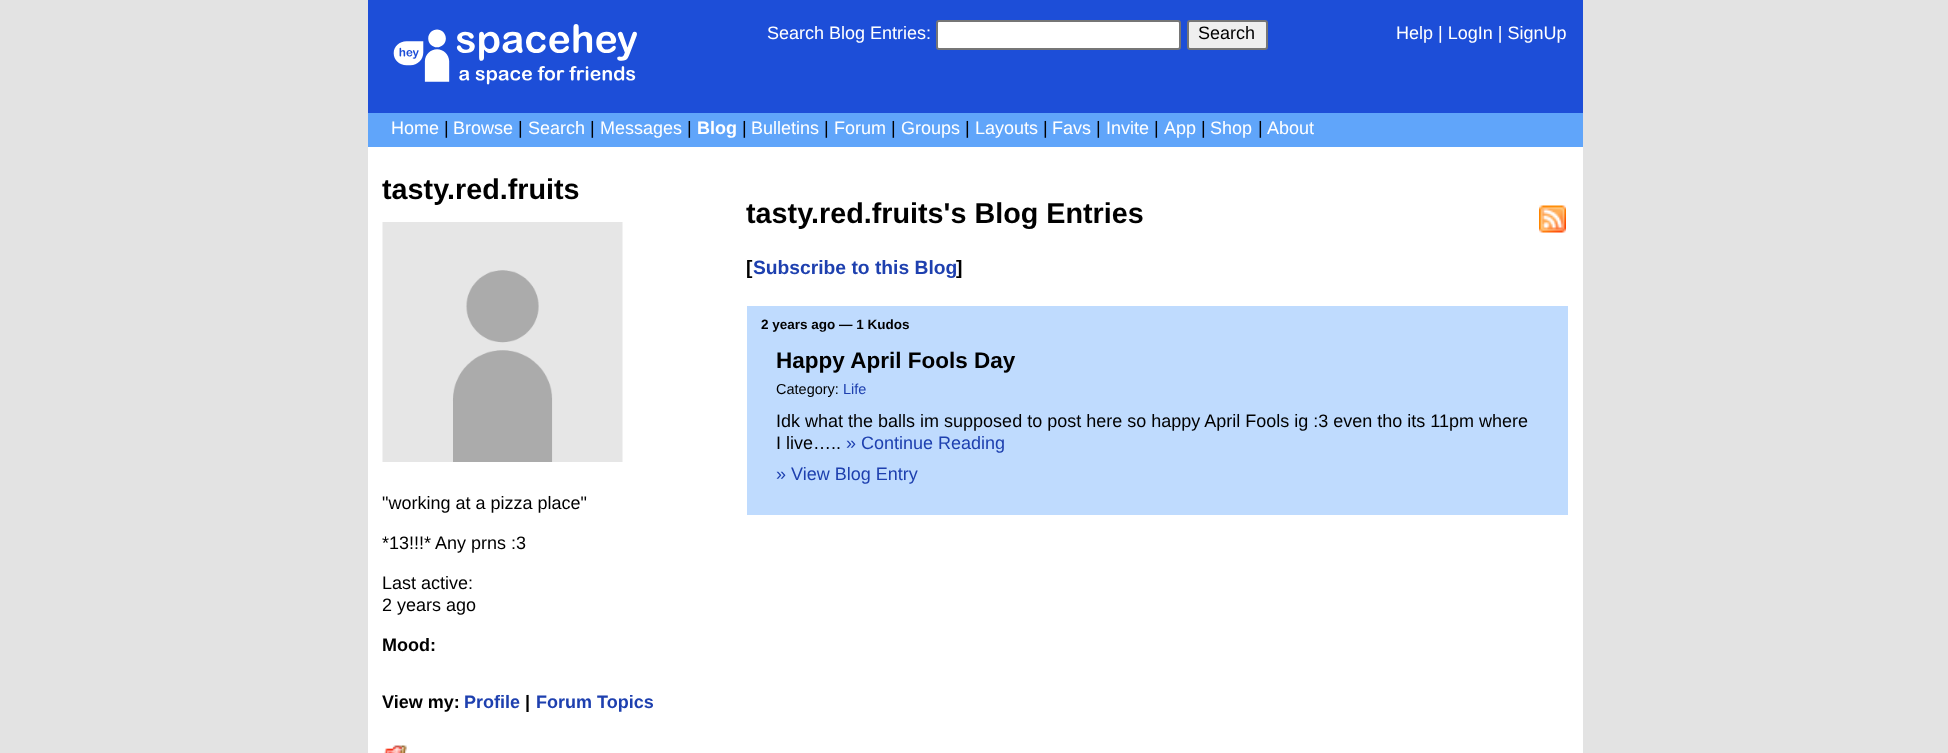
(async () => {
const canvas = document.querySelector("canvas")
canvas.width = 1948
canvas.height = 753
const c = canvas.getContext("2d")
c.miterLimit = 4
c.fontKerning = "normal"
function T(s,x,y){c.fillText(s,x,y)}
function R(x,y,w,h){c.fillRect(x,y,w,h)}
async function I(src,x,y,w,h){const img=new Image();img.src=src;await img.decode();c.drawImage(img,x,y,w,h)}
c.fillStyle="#e3e3e3"
R(0,0,1948,753)
c.fillStyle="#1d4ed8"
R(368,0,1215,113)
await I("1.png",393,24,244,61)
c.font="18px Liberation Sans"
c.fillStyle="#fff"
T("Search Blog Entries:",767,39)
c.beginPath()
c.roundRect(937,21,243,28,2)
c.fill()
c.strokeStyle="#767676"
c.lineWidth=2
c.stroke()
c.fillStyle="#efefef"
c.beginPath()
c.roundRect(1188,21,79,28,2)
c.fill()
c.stroke()
c.fillStyle="#000"
T("Search",1198,39)
c.fillStyle="#fff"
T("Help | LogIn | SignUp",1396,39)
c.fillStyle="#60a5fa"
R(368,113,1215,34)
c.fillStyle="#fff"
T("Home",391,134)
c.fillStyle="#000"
T("|",444,134)
c.fillStyle="#fff"
T("Browse",453,134)
c.fillStyle="#000"
T("|",518,134)
c.fillStyle="#fff"
T("Search",528,134)
c.fillStyle="#000"
T("|",590,134)
c.fillStyle="#fff"
T("Messages",600,134)
c.fillStyle="#000"
T("|",687,134)
c.font="bold 18px Liberation Sans"
c.fillStyle="#fff"
T("Blog",697,134)
c.font="18px Liberation Sans"
c.fillStyle="#000"
T("|",742,134)
c.fillStyle="#fff"
T("Bulletins",751,134)
c.fillStyle="#000"
T("|",824,134)
c.fillStyle="#fff"
T("Forum",834,134)
c.fillStyle="#000"
T("|",891,134)
c.fillStyle="#fff"
T("Groups",901,134)
c.fillStyle="#000"
T("|",965,134)
c.fillStyle="#fff"
T("Layouts",975,134)
c.fillStyle="#000"
T("|",1043,134)
c.fillStyle="#fff"
T("Favs",1052,134)
c.fillStyle="#000"
T("|",1096,134)
c.fillStyle="#fff"
T("Invite",1106,134)
c.fillStyle="#000"
T("|",1154,134)
c.fillStyle="#fff"
T("App",1164,134)
c.fillStyle="#000"
T("|",1201,134)
c.fillStyle="#fff"
T("Shop",1210,134)
c.fillStyle="#000"
T("|",1258,134)
c.fillStyle="#fff"
T("About",1267,134)
R(368,147,1215,606)
c.font="bold 28.75px Liberation Sans"
c.fillStyle="#000"
T("tasty.red.fruits",382,199)
await I("2.png",382,222,241,240)
c.font="18px Liberation Sans"
T("\"working at a pizza place\"",382,509)
T("*13!!!*",382,549)
T("Any prns :3",435,549)
T("Last active:",382,589)
T("2 years ago",382,611)
c.font="bold 18px Liberation Sans"
T("Mood:",382,651)
T("View my:",382,708)
c.fillStyle="#1e40af"
T("Profile",464,708)
c.fillStyle="#000"
T("|",525,708)
c.fillStyle="#1e40af"
T("Forum Topics",536,708)
await I("3.png",384,745,23,8)
c.font="bold 28.75px Liberation Sans"
c.fillStyle="#000"
T("tasty.red.fruits's Blog Entries",746,223)
await I("4.png",1539,205,27,28)
c.font="bold 19.25px Liberation Sans"
T("[",746,274)
c.fillStyle="#1e40af"
T("Subscribe to this Blog",753,274)
c.fillStyle="#000"
T("]",956,274)
c.fillStyle="#bfdbfe"
R(747,306,821,209)
c.font="bold 13.5px Liberation Sans"
c.fillStyle="#000"
T("2 years ago — 1 Kudos",761,329)
c.font="bold 22.5px Liberation Sans"
T("Happy April Fools Day",776,368)
c.font="14.5px Liberation Sans"
T("Category:",776,394)
c.fillStyle="#1e40af"
T("Life",843,394)
c.font="18px Liberation Sans"
c.fillStyle="#000"
T("Idk what the balls im supposed to post here so happy April Fools ig :3 even tho its 11pm where",776,427)
T("I live…..",776,449)
c.fillStyle="#1e40af"
T("» Continue Reading",846,449)
T("» View Blog Entry",776,480)
})()
